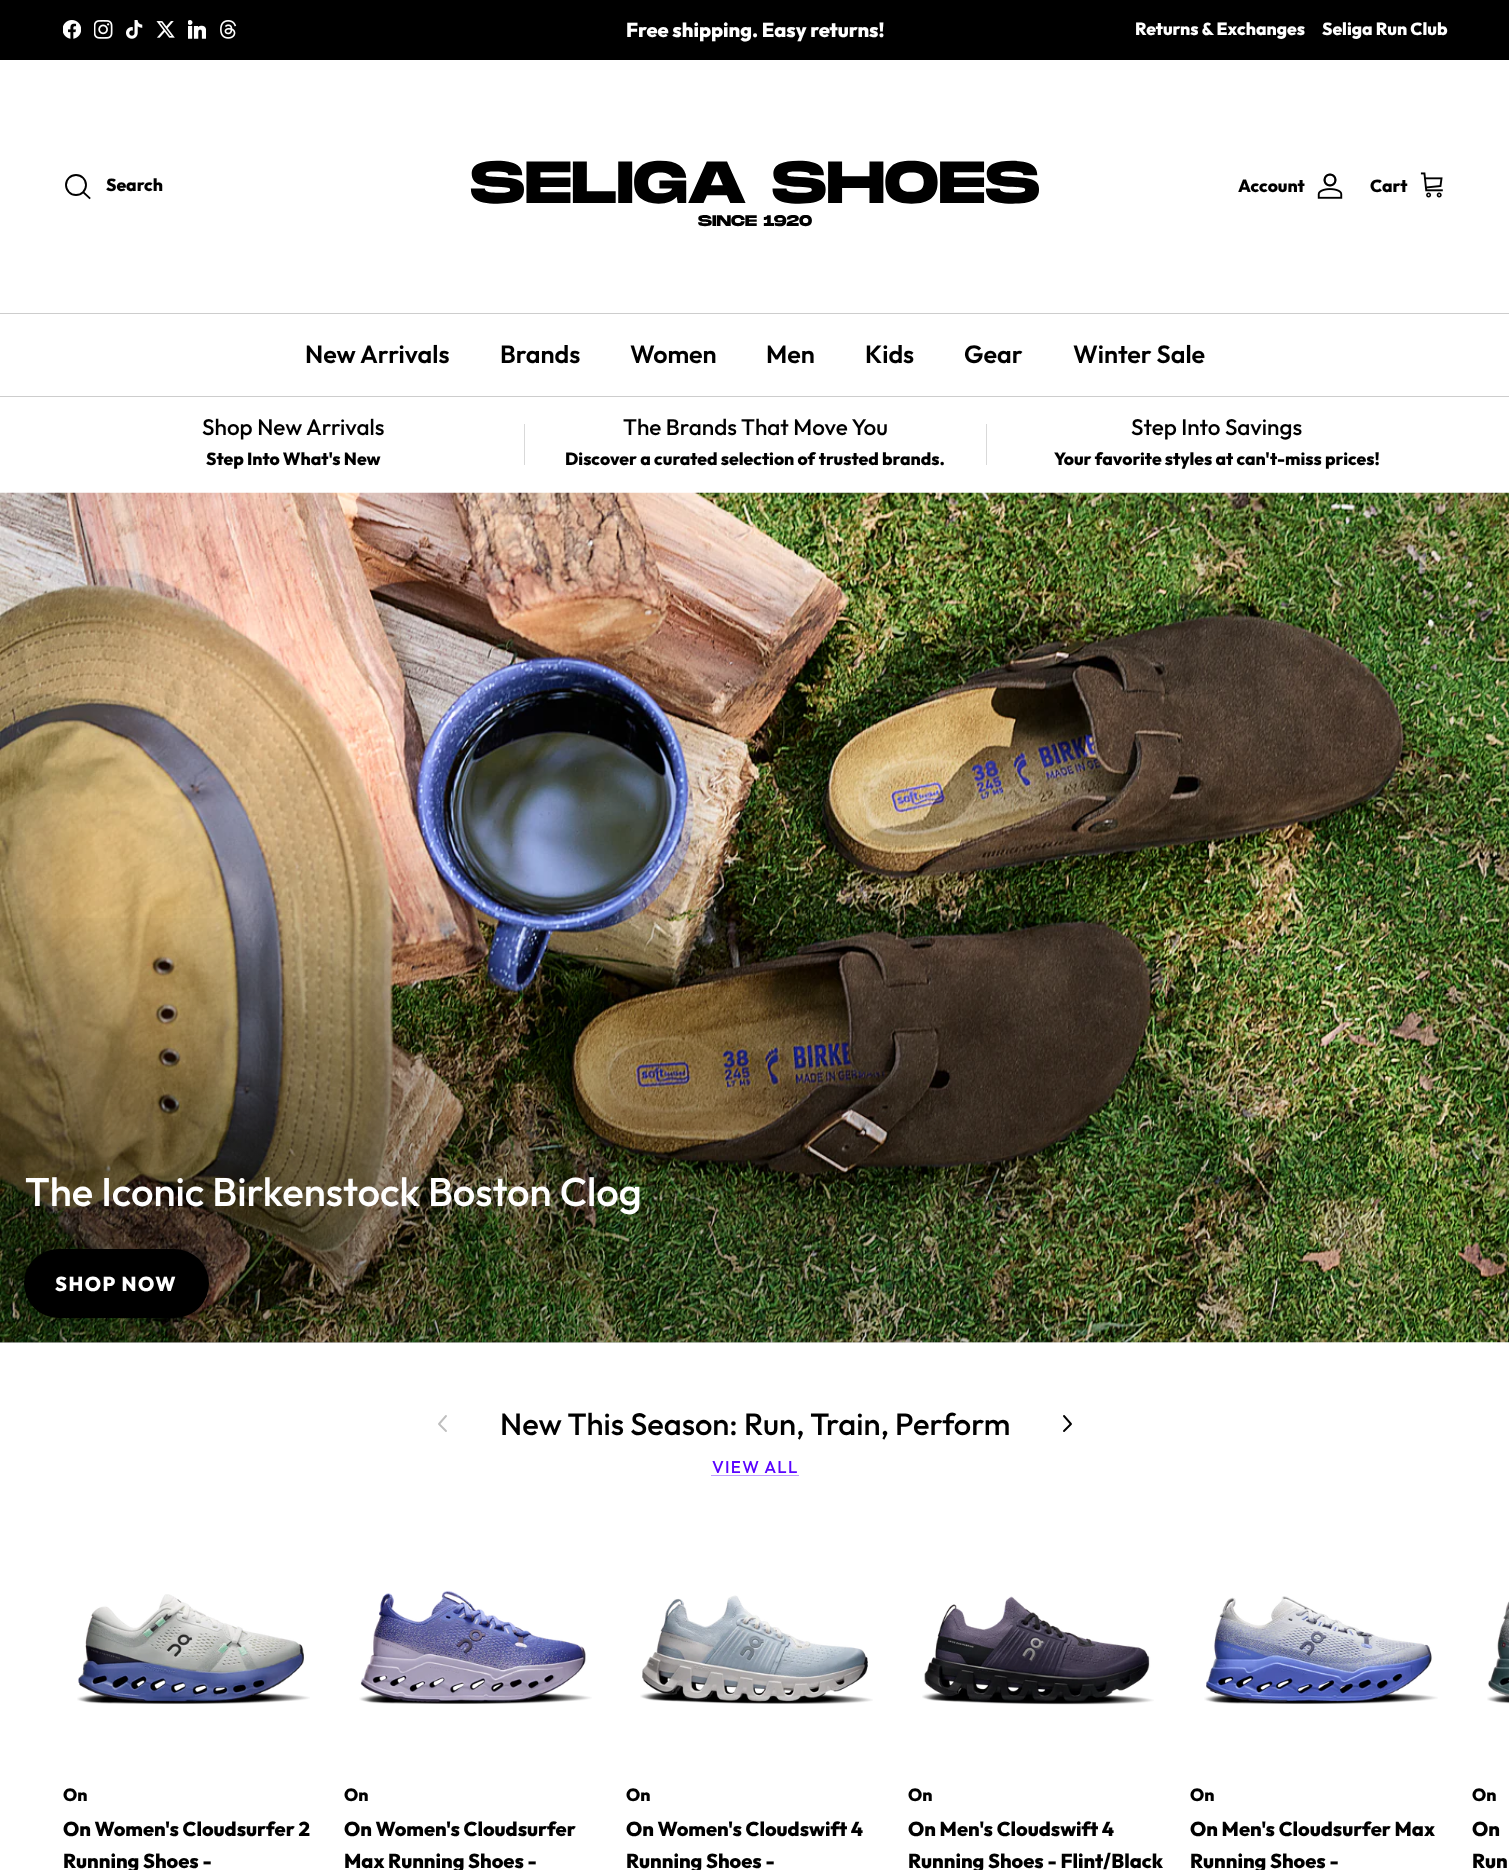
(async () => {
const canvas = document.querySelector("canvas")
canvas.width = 1509
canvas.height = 1870
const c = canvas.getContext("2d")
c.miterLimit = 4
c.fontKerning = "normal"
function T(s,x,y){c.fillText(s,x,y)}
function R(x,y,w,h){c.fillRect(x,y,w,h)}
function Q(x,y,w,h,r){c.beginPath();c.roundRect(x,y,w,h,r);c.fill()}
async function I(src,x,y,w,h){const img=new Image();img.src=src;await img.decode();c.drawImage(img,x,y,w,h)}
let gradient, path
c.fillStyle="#fff"
R(0,0,1509,1870)
c.fillStyle="#000"
R(0,0,1509,60)
await I("1.png",63,20,18,19)
await I("2.png",94,20,19,19)
await I("3.png",126,20,17,19)
await I("4.png",156,21,19,17)
await I("5.png",188,20,18,19)
await I("6.png",220,20,17,19)
c.font="800 20px Outfit"
c.fillStyle="#fff"
T("Free shipping. Easy returns!",626,37)
c.font="800 17.5px Outfit"
T("Returns & Exchanges",1135,35)
T("Seliga Run Club",1322,35)
c.fillStyle="#cdcdcd"
R(0,313,1509,1)
c.beginPath()
c.arc(76,185,10,0,7)
c.strokeStyle="#000"
c.lineWidth=1.9
c.stroke()
c.fillStyle="#000"
T("Search",106,191)
path = new Path2D("M83.5 192.5l6 5.5")
c.lineCap="square"
c.stroke(path)
await I("7.png",470,160,569,67)
T("Account",1238,192)
await I("8.png",1317,173,26,26)
T("Cart",1370,192)
await I("9.png",1420,172,23,26)
c.fillStyle="#cdcdcd"
R(0,396,1509,1)
c.font="600 25px Outfit"
c.fillStyle="#000"
T("New Arrivals",305,363)
T("Brands",500,363)
T("Women",630,363)
T("Men",766,363)
T("Kids",865,363)
T("Gear",964,363)
T("Winter Sale",1073,363)
c.font="500 22.5px Outfit"
T("Shop New Arrivals",202,435)
c.font="800 17.5px Outfit"
T("Step Into What's New",206,465)
c.fillStyle="#d9d9d9"
R(524,424,1,41)
c.font="500 22.5px Outfit"
c.fillStyle="#000"
T("The Brands That Move You",623,435)
c.font="800 17.5px Outfit"
T("Discover a curated selection of trusted brands.",565,465)
c.fillStyle="#d9d9d9"
R(986,424,1,41)
c.font="500 22.5px Outfit"
c.fillStyle="#000"
T("Step Into Savings",1131,435)
c.font="800 17.5px Outfit"
T("Your favorite styles at can't-miss prices!",1054,465)
await I("10.png",0,492,1509,851)
gradient = c.createRadialGradient(113,4983.57,0,113,4983.57,1975)
gradient.addColorStop(0,"#00000066")
gradient.addColorStop(.7,"#00000000")
c.fillStyle = gradient
c.beginPath()
c.rect(0,918,1425,425)
c.save()
c.clip()
c.scale(1,493 / 1975)
c.fillRect(0,0,1509,7492)
c.restore()
c.font="500 40px Outfit"
c.fillStyle="#fff"
T("The Iconic Birkenstock Boston Clog",25,1206)
c.fillStyle="#000"
Q(24,1249,185,69,34.5)
c.letterSpacing="1.5px"
c.font="800 20px Outfit"
c.fillStyle="#fff"
T("SHOP NOW",55,1291)
path = new Path2D("M446 1431l-7-7l7-8")
c.strokeStyle="#bfbfbf"
c.lineCap="round"
c.lineJoin="round"
c.stroke(path)
c.letterSpacing="0px"
c.font="500 30.9px Outfit"
c.fillStyle="#000"
T("New This Season: Run, Train, Perform",500,1435)
path = new Path2D("M1064 1431l7-7l-7-8")
c.strokeStyle="#000"
c.stroke(path)
c.letterSpacing="1.25px"
c.font="500 17px Outfit"
c.fillStyle="#5a04ff"
T("VIEW ALL",712,1473)
c.fillStyle="#bd9bff"
R(711,1475,88,1)
await I("11.png",77,1594,233,110)
c.letterSpacing="0px"
c.font="800 17.5px Outfit"
c.fillStyle="#000"
T("On",63,1801)
c.font="800 20px Outfit"
T("On Women's Cloudsurfer 2",63,1836)
T("Running Shoes -",63,1868)
await I("12.png",359,1590,233,114)
c.font="800 17.5px Outfit"
T("On",344,1801)
c.font="800 20px Outfit"
T("On Women's Cloudsurfer",344,1836)
T("Max Running Shoes -",344,1868)
await I("13.png",640,1595,233,109)
c.font="800 17.5px Outfit"
T("On",626,1801)
c.font="800 20px Outfit"
T("On Women's Cloudswift 4",626,1836)
T("Running Shoes -",626,1868)
await I("14.png",922,1596,232,109)
c.font="800 17.5px Outfit"
T("On",908,1801)
c.font="800 20px Outfit"
T("On Men's Cloudswift 4",908,1836)
T("Running Shoes - Flint/Black",908,1868)
await I("15.png",1204,1596,234,108)
c.font="800 17.5px Outfit"
T("On",1190,1801)
c.font="800 20px Outfit"
T("On Men's Cloudsurfer Max",1190,1836)
T("Running Shoes -",1190,1868)
await I("16.png",1487,1601,22,103)
c.font="800 17.5px Outfit"
T("On",1472,1801)
c.font="800 20px Outfit"
T("On",1472,1836)
T("Run",1472,1868)
})()
